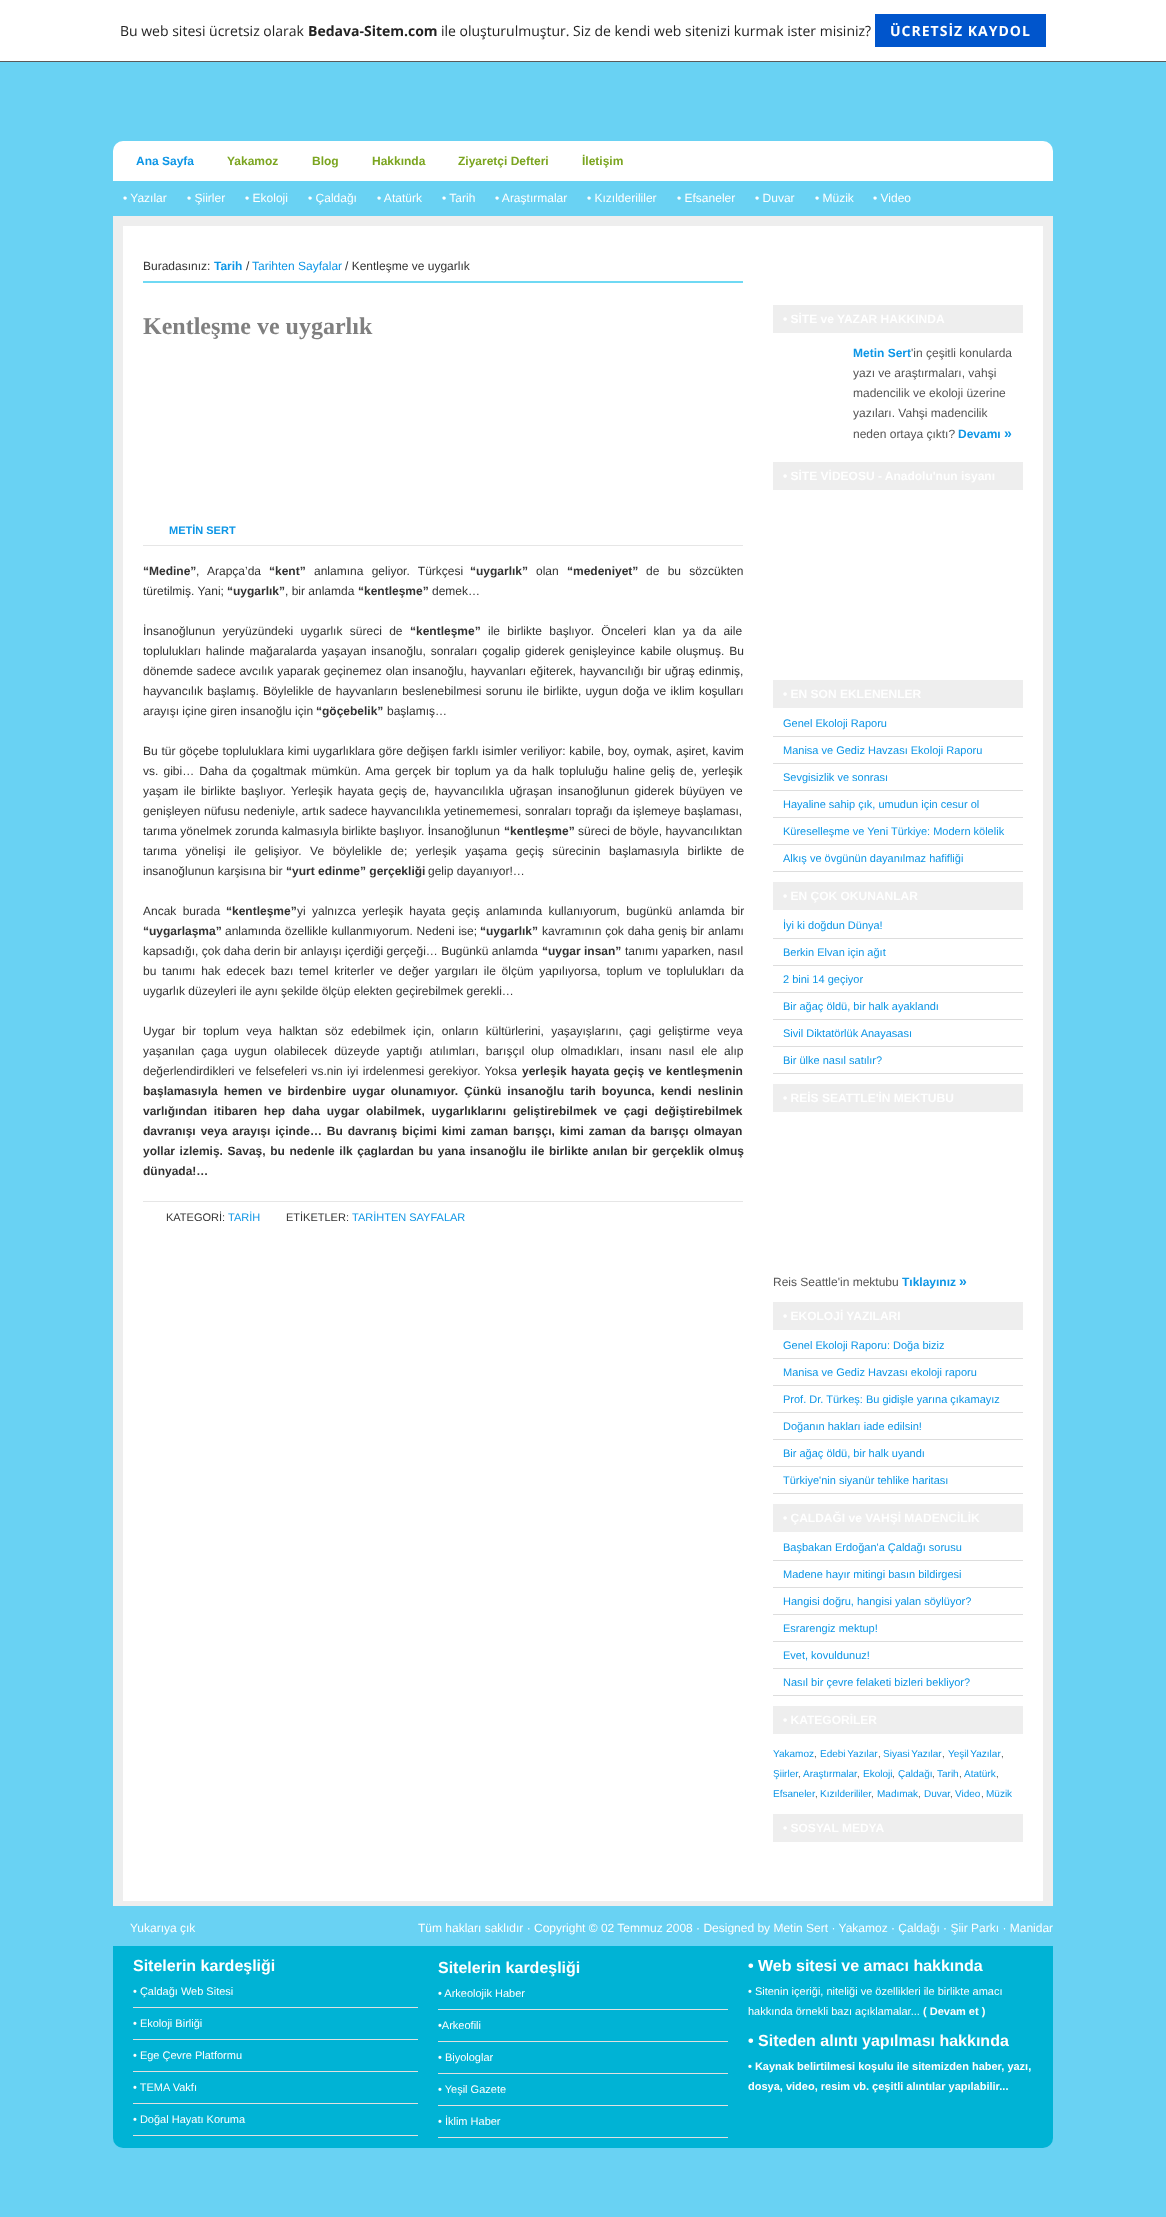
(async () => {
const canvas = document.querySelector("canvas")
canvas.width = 1166
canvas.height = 2217
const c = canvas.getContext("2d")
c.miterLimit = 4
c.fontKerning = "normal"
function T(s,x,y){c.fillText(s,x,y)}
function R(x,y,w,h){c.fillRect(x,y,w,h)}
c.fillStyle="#69d2f3"
R(0,0,1166,2217)
c.fillStyle="#fff"
R(0,0,1166,61)
c.fillStyle="#5a5a5a"
R(0,61,1166,1)
c.font="14px Open Sans"
c.fillStyle="#232323"
T("Bu web sitesi ücretsiz olarak",120,36)
c.font="bold 14px Open Sans"
T("Bedava-Sitem.com",308,36)
c.font="14px Open Sans"
T("ile oluşturulmuştur. Siz de kendi web sitenizi kurmak ister misiniz?",441,36)
c.fillStyle="#05c"
R(875,14,171,33)
c.letterSpacing="1px"
c.font="bold 14px Open Sans"
c.fillStyle="#fff"
T("ÜCRETSİZ KAYDOL",890,36)
c.beginPath()
c.roundRect(113,141,940,40,[10,10,0,0])
c.fill()
c.letterSpacing="0px"
c.font="bold 12px Liberation Sans"
c.fillStyle="#0d96e6"
T("Ana Sayfa",136,165)
c.fillStyle="#7ba520"
T("Yakamoz",227,165)
T("Blog",312,165)
T("Hakkında",372,165)
T("Ziyaretçi Defteri",458,165)
T("İletişim",582,165)
c.font="12px Liberation Sans"
c.fillStyle="#fff"
T("• Yazılar",123,202)
T("• Şiirler",187,202)
T("• Ekoloji",245,202)
T("• Çaldağı",308,202)
T("• Atatürk",377,202)
T("• Tarih",442,202)
T("• Araştırmalar",495,202)
T("• Kızılderililer",587,202)
T("• Efsaneler",677,202)
T("• Duvar",755,202)
T("• Müzik",815,202)
T("• Video",873,202)
R(123,226,920,1675)
c.fillStyle="#eee"
R(123,216,920,10)
R(1043,216,10,1685)
R(123,1901,930,5)
R(113,216,10,1690)
c.fillStyle="#6fd9f4"
R(143,281,600,2)
c.fillStyle="#333"
T("Buradasınız:",143,270)
c.font="bold 12px Liberation Sans"
c.fillStyle="#0d96e6"
T("Tarih",214,270)
c.font="12px Liberation Sans"
c.fillStyle="#333"
T("/",246,270)
c.fillStyle="#0d96e6"
T("Tarihten Sayfalar",252,270)
c.fillStyle="#333"
T("/ Kentleşme ve uygarlık",345,270)
c.font="bold 24px Liberation Serif"
c.fillStyle="#808080"
T("Kentleşme ve uygarlık",143,334)
c.fillStyle="#e6e6e6"
R(143,545,600,1)
c.font="bold 11px Liberation Sans"
c.fillStyle="#0d96e6"
T("METİN SERT",169,534)
c.font="bold 12px Liberation Sans"
c.fillStyle="#333"
T("“Medine”",143,575)
c.wordSpacing="5px"
c.font="12px Liberation Sans"
T(", Arapça’da",196,575)
c.wordSpacing="0px"
c.font="bold 12px Liberation Sans"
T("“kent”",269,575)
c.wordSpacing="5px"
c.font="12px Liberation Sans"
T("anlamına geliyor. Türkçesi",314,575)
c.wordSpacing="0px"
c.font="bold 12px Liberation Sans"
T("“uygarlık”",470,575)
c.font="12px Liberation Sans"
T("olan",536,575)
c.font="bold 12px Liberation Sans"
T("“medeniyet”",567,575)
c.wordSpacing="5px"
c.font="12px Liberation Sans"
T("de bu sözcükten",646,575)
c.wordSpacing="0px"
T("türetilmiş. Yani;",143,595)
c.font="bold 12px Liberation Sans"
T("“uygarlık”",227,595)
c.font="12px Liberation Sans"
T(", bir anlamda",285,595)
c.font="bold 12px Liberation Sans"
T("“kentleşme”",358,595)
c.font="12px Liberation Sans"
T("demek…",432,595)
c.wordSpacing="4px"
T("İnsanoğlunun yeryüzündeki uygarlık süreci de",143,635)
c.wordSpacing="0px"
c.font="bold 12px Liberation Sans"
T("“kentleşme”",410,635)
c.wordSpacing="4px"
c.font="12px Liberation Sans"
T("ile birlikte başlıyor. Önceleri klan ya da aile",488,635)
c.wordSpacing="1.5px"
T("toplulukları halinde mağaralarda yaşayan insanoğlu, sonraları çogalip giderek genişleyince kabile oluşmuş. Bu",143,655)
c.wordSpacing="0.5px"
T("dönemde sadece avcılık yaparak geçinemez olan insanoğlu, hayvanları eğiterek, hayvancılığı bir uğraş edinmiş,",143,675)
c.wordSpacing="1px"
T("hayvancılık başlamış. Böylelikle de hayvanların beslenebilmesi sorunu ile birlikte, uygun doğa ve iklim koşulları",143,695)
c.wordSpacing="0px"
T("arayışı içine giren insanoğlu için",143,715)
c.font="bold 12px Liberation Sans"
T("“göçebelik”",316,715)
c.font="12px Liberation Sans"
T("başlamış…",387,715)
c.wordSpacing="0.5px"
T("Bu tür göçebe topluluklara kimi uygarlıklara göre değişen farklı isimler veriliyor: kabile, boy, oymak, aşiret, kavim",143,755)
c.wordSpacing="1.8px"
T("vs. gibi… Daha da çogaltmak mümkün. Ama gerçek bir toplum ya da halk topluluğu haline geliş de, yerleşik",143,775)
c.wordSpacing="2px"
T("yaşam ile birlikte başlıyor. Yerleşik hayata geçiş de, hayvancılıkla uğraşan insanoğlunun giderek büyüyen ve",143,795)
c.wordSpacing="0.25px"
T("genişleyen nüfusu nedeniyle, artık sadece hayvancılıkla yetinememesi, sonraları toprağı da işlemeye başlaması,",143,815)
c.wordSpacing="0px"
T("tarıma yönelmek zorunda kalmasıyla birlikte başlıyor. İnsanoğlunun",143,835)
c.font="bold 12px Liberation Sans"
T("“kentleşme”",504,835)
c.font="12px Liberation Sans"
T("süreci de böyle, hayvancılıktan",578,835)
c.wordSpacing="5.25px"
T("tarıma yönelişi ile gelişiyor. Ve böylelikle de; yerleşik yaşama geçiş sürecinin başlamasıyla birlikte de",143,855)
c.wordSpacing="0px"
T("insanoğlunun karşisına bir",143,875)
c.font="bold 12px Liberation Sans"
T("“yurt edinme” gerçekliği",286,875)
c.font="12px Liberation Sans"
T("gelip dayanıyor!…",428,875)
c.wordSpacing="3px"
T("Ancak burada",143,915)
c.wordSpacing="0px"
c.font="bold 12px Liberation Sans"
T("“kentleşme”",226,915)
c.wordSpacing="3px"
c.font="12px Liberation Sans"
T("yi yalnızca yerleşik hayata geçiş anlamında kullanıyorum, bugünkü anlamda bir",297,915)
c.wordSpacing="0px"
c.font="bold 12px Liberation Sans"
T("“uygarlaşma”",143,935)
c.wordSpacing="0.5px"
c.font="12px Liberation Sans"
T("anlamında özellikle kullanmıyorum. Nedeni ise;",225,935)
c.wordSpacing="0px"
c.font="bold 12px Liberation Sans"
T("“uygarlık”",480,935)
c.wordSpacing="0.5px"
c.font="12px Liberation Sans"
T("kavramının çok daha geniş bir anlamı",542,935)
c.wordSpacing="0px"
T("kapsadığı, çok daha derin bir anlayışı içerdiği gerçeği… Bugünkü anlamda",143,955)
c.font="bold 12px Liberation Sans"
T("“uygar insan”",542,955)
c.font="12px Liberation Sans"
T("tanımı yaparken, nasıl",625,955)
c.wordSpacing="2.4px"
T("bu tanımı hak edecek bazı temel kriterler ve değer yargıları ile ölçüm yapılıyorsa, toplum ve toplulukları da",143,975)
c.wordSpacing="0px"
T("uygarlık düzeyleri ile aynı şekilde ölçüp elekten geçirebilmek gerekli…",143,995)
c.wordSpacing="4px"
T("Uygar bir toplum veya halktan söz edebilmek için, onların kültürlerini, yaşayışlarını, çagi geliştirme veya",143,1035)
c.wordSpacing="3.6px"
T("yaşanılan çaga uygun olabilecek düzeyde yaptığı atılımları, barışçıl olup olmadıkları, insanı nasıl ele alıp",143,1055)
c.wordSpacing="1px"
T("değerlendirdikleri ve felsefeleri vs.nin iyi irdelenmesi gerekiyor. Yoksa",143,1075)
c.font="bold 12px Liberation Sans"
T("yerleşik hayata geçiş ve kentleşmenin",522,1075)
c.wordSpacing="2.6px"
T("başlamasıyla hemen ve birdenbire uygar olunamıyor. Çünkü insanoğlu tarih boyunca, kendi neslinin",143,1095)
c.wordSpacing="3.4px"
T("varlığından itibaren hep daha uygar olabilmek, uygarlıklarını geliştirebilmek ve çagi değiştirebilmek",143,1115)
c.wordSpacing="1.6px"
T("davranışı veya arayışı içinde… Bu davranış biçimi kimi zaman barışçı, kimi zaman da barışçı olmayan",143,1135)
c.wordSpacing="1.25px"
T("yollar izlemiş. Savaş, bu nedenle ilk çaglardan bu yana insanoğlu ile birlikte anılan bir gerçeklik olmuş",143,1155)
c.wordSpacing="0px"
T("dünyada!…",143,1175)
c.fillStyle="#e6e6e6"
R(143,1201,600,1)
c.font="11px Liberation Sans"
c.fillStyle="#333"
T("KATEGORİ:",166,1221)
c.fillStyle="#0d96e6"
T("TARİH",228,1221)
c.fillStyle="#333"
T("ETİKETLER:",286,1221)
c.fillStyle="#0d96e6"
T("TARİHTEN SAYFALAR",352,1221)
c.fillStyle="#eee"
R(773,305,250,28)
c.font="bold 12px Liberation Sans"
c.fillStyle="#fff"
T("• SİTE ve YAZAR HAKKINDA",783,323)
c.fillStyle="#0d96e6"
T("Metin Sert",853,357)
c.font="12px Liberation Sans"
c.fillStyle="#555"
T("'in çeşitli konularda",911,357)
T("yazı ve araştırmaları, vahşi",853,377)
T("madencilik ve ekoloji üzerine",853,397)
T("yazıları. Vahşi madencilik",853,417)
T("neden ortaya çıktı?",853,438)
c.font="bold 12px Liberation Sans"
c.fillStyle="#0d96e6"
T("Devamı",958,438)
c.font="bold 14px Liberation Sans"
T("»",1004,438)
c.fillStyle="#eee"
R(773,462,250,28)
c.font="bold 12px Liberation Sans"
c.fillStyle="#fff"
T("• SİTE VİDEOSU - Anadolu'nun isyanı",783,480)
c.fillStyle="#eee"
R(773,680,250,28)
c.fillStyle="#fff"
T("• EN SON EKLENENLER",783,698)
c.fillStyle="#ddd"
R(773,736,250,1)
c.font="11px Liberation Sans"
c.fillStyle="#0d96e6"
T("Genel Ekoloji Raporu",783,727)
c.fillStyle="#ddd"
R(773,763,250,1)
c.fillStyle="#0d96e6"
T("Manisa ve Gediz Havzası Ekoloji Raporu",783,754)
c.fillStyle="#ddd"
R(773,790,250,1)
c.fillStyle="#0d96e6"
T("Sevgisizlik ve sonrası",783,781)
c.fillStyle="#ddd"
R(773,817,250,1)
c.fillStyle="#0d96e6"
T("Hayaline sahip çık, umudun için cesur ol",783,808)
c.fillStyle="#ddd"
R(773,844,250,1)
c.fillStyle="#0d96e6"
T("Küreselleşme ve Yeni Türkiye: Modern kölelik",783,835)
c.fillStyle="#ddd"
R(773,871,250,1)
c.fillStyle="#0d96e6"
T("Alkış ve övgünün dayanılmaz hafifliği",783,862)
c.fillStyle="#eee"
R(773,882,250,28)
c.font="bold 12px Liberation Sans"
c.fillStyle="#fff"
T("• EN ÇOK OKUNANLAR",783,900)
c.fillStyle="#ddd"
R(773,938,250,1)
c.font="11px Liberation Sans"
c.fillStyle="#0d96e6"
T("İyi ki doğdun Dünya!",783,929)
c.fillStyle="#ddd"
R(773,965,250,1)
c.fillStyle="#0d96e6"
T("Berkin Elvan için ağıt",783,956)
c.fillStyle="#ddd"
R(773,992,250,1)
c.fillStyle="#0d96e6"
T("2 bini 14 geçiyor",783,983)
c.fillStyle="#ddd"
R(773,1019,250,1)
c.fillStyle="#0d96e6"
T("Bir ağaç öldü, bir halk ayaklandı",783,1010)
c.fillStyle="#ddd"
R(773,1046,250,1)
c.fillStyle="#0d96e6"
T("Sivil Diktatörlük Anayasası",783,1037)
c.fillStyle="#ddd"
R(773,1073,250,1)
c.fillStyle="#0d96e6"
T("Bir ülke nasıl satılır?",783,1064)
c.fillStyle="#eee"
R(773,1084,250,28)
c.font="bold 12px Liberation Sans"
c.fillStyle="#fff"
T("• REİS SEATTLE'İN MEKTUBU",783,1102)
c.font="12px Liberation Sans"
c.fillStyle="#555"
T("Reis Seattle'in mektubu",773,1286)
c.font="bold 12px Liberation Sans"
c.fillStyle="#0d96e6"
T("Tıklayınız",902,1286)
c.font="bold 14px Liberation Sans"
T("»",959,1286)
c.fillStyle="#eee"
R(773,1302,250,28)
c.font="bold 12px Liberation Sans"
c.fillStyle="#fff"
T("• EKOLOJİ YAZILARI",783,1320)
c.fillStyle="#ddd"
R(773,1358,250,1)
c.font="11px Liberation Sans"
c.fillStyle="#0d96e6"
T("Genel Ekoloji Raporu: Doğa biziz",783,1349)
c.fillStyle="#ddd"
R(773,1385,250,1)
c.fillStyle="#0d96e6"
T("Manisa ve Gediz Havzası ekoloji raporu",783,1376)
c.fillStyle="#ddd"
R(773,1412,250,1)
c.fillStyle="#0d96e6"
T("Prof. Dr. Türkeş: Bu gidişle yarına çıkamayız",783,1403)
c.fillStyle="#ddd"
R(773,1439,250,1)
c.fillStyle="#0d96e6"
T("Doğanın hakları iade edilsin!",783,1430)
c.fillStyle="#ddd"
R(773,1466,250,1)
c.fillStyle="#0d96e6"
T("Bir ağaç öldü, bir halk uyandı",783,1457)
c.fillStyle="#ddd"
R(773,1493,250,1)
c.fillStyle="#0d96e6"
T("Türkiye'nin siyanür tehlike haritası",783,1484)
c.fillStyle="#eee"
R(773,1504,250,28)
c.font="bold 12px Liberation Sans"
c.fillStyle="#fff"
T("• ÇALDAĞI ve VAHŞİ MADENCİLİK",783,1522)
c.fillStyle="#ddd"
R(773,1560,250,1)
c.font="11px Liberation Sans"
c.fillStyle="#0d96e6"
T("Başbakan Erdoğan'a Çaldağı sorusu",783,1551)
c.fillStyle="#ddd"
R(773,1587,250,1)
c.fillStyle="#0d96e6"
T("Madene hayır mitingi basın bildirgesi",783,1578)
c.fillStyle="#ddd"
R(773,1614,250,1)
c.fillStyle="#0d96e6"
T("Hangisi doğru, hangisi yalan söylüyor?",783,1605)
c.fillStyle="#ddd"
R(773,1641,250,1)
c.fillStyle="#0d96e6"
T("Esrarengiz mektup!",783,1632)
c.fillStyle="#ddd"
R(773,1668,250,1)
c.fillStyle="#0d96e6"
T("Evet, kovuldunuz!",783,1659)
c.fillStyle="#ddd"
R(773,1695,250,1)
c.fillStyle="#0d96e6"
T("Nasıl bir çevre felaketi bizleri bekliyor?",783,1686)
c.fillStyle="#eee"
R(773,1706,250,28)
c.font="bold 12px Liberation Sans"
c.fillStyle="#fff"
T("• KATEGORİLER",783,1724)
c.font="10px Liberation Sans"
c.fillStyle="#0d96e6"
T("Yakamoz",773,1757)
c.fillStyle="#555"
T(",",814,1757)
c.wordSpacing="-1px"
c.fillStyle="#0d96e6"
T("Edebi Yazılar",820,1757)
c.wordSpacing="0px"
c.fillStyle="#555"
T(",",878,1757)
c.wordSpacing="-1px"
c.fillStyle="#0d96e6"
T("Siyasi Yazılar",883,1757)
c.wordSpacing="0px"
c.fillStyle="#555"
T(",",942,1757)
c.wordSpacing="-1px"
c.fillStyle="#0d96e6"
T("Yeşil Yazılar",948,1757)
c.wordSpacing="0px"
c.fillStyle="#555"
T(",",1001,1757)
c.fillStyle="#0d96e6"
T("Şiirler",773,1777)
T("Araştırmalar",803,1777)
T("Ekoloji",863,1777)
T("Çaldağı",898,1777)
T("Tarih",937,1777)
T("Atatürk",964,1777)
c.fillStyle="#555"
T(",",798,1777)
T(",",857,1777)
T(",",892,1777)
T(",",932,1777)
T(",",959,1777)
T(",",996,1777)
c.fillStyle="#0d96e6"
T("Efsaneler",773,1797)
T("Kızılderililer",820,1797)
T("Madımak",877,1797)
T("Duvar",924,1797)
T("Video",955,1797)
T("Müzik",986,1797)
c.fillStyle="#555"
T(",",815,1797)
T(",",871,1797)
T(",",918,1797)
T(",",950,1797)
T(",",981,1797)
c.fillStyle="#eee"
R(773,1814,250,28)
c.font="bold 12px Liberation Sans"
c.fillStyle="#fff"
T("• SOSYAL MEDYA",783,1832)
c.font="12px Liberation Sans"
T("Yukarıya çık",130,1932)
T("Tüm hakları saklıdır · Copyright © 02 Temmuz 2008 · Designed by Metin Sert · Yakamoz · Çaldağı · Şiir Parkı · Manidar",418,1932)
c.fillStyle="#00b3d5"
c.beginPath()
c.roundRect(113,1946,940,202,[0,0,10,10])
c.fill()
c.font="bold 16px Liberation Sans"
c.fillStyle="#fff"
T("Sitelerin kardeşliği",133,1971)
c.font="11px Liberation Sans"
T("• Çaldağı Web Sitesi",133,1995)
c.fillStyle="#e0e0e0"
R(133,2007,285,1)
c.fillStyle="#fff"
T("• Ekoloji Birliği",133,2027)
c.fillStyle="#e0e0e0"
R(133,2039,285,1)
c.fillStyle="#fff"
T("• Ege Çevre Platformu",133,2059)
c.fillStyle="#e0e0e0"
R(133,2071,285,1)
c.fillStyle="#fff"
T("• TEMA Vakfı",133,2091)
c.fillStyle="#e0e0e0"
R(133,2103,285,1)
c.fillStyle="#fff"
T("• Doğal Hayatı Koruma",133,2123)
c.fillStyle="#e0e0e0"
R(133,2135,285,1)
c.font="bold 16px Liberation Sans"
c.fillStyle="#fff"
T("Sitelerin kardeşliği",438,1973)
c.font="11px Liberation Sans"
T("• Arkeolojik Haber",438,1997)
c.fillStyle="#e0e0e0"
R(438,2009,290,1)
c.fillStyle="#fff"
T("•Arkeofili",438,2029)
c.fillStyle="#e0e0e0"
R(438,2041,290,1)
c.fillStyle="#fff"
T("• Biyologlar",438,2061)
c.fillStyle="#e0e0e0"
R(438,2073,290,1)
c.fillStyle="#fff"
T("• Yeşil Gazete",438,2093)
c.fillStyle="#e0e0e0"
R(438,2105,290,1)
c.fillStyle="#fff"
T("• İklim Haber",438,2125)
c.fillStyle="#e0e0e0"
R(438,2137,290,1)
c.font="bold 16px Liberation Sans"
c.fillStyle="#fff"
T("• Web sitesi ve amacı hakkında",748,1971)
c.font="11px Liberation Sans"
T("• Sitenin içeriği, niteliği ve özellikleri ile birlikte amacı",748,1995)
T("hakkında örnekli bazı açıklamalar...",748,2015)
c.font="bold 11px Liberation Sans"
T("( Devam et )",923,2015)
c.font="bold 16px Liberation Sans"
T("• Siteden alıntı yapılması hakkında",748,2046)
c.font="bold 11px Liberation Sans"
T("• Kaynak belirtilmesi koşulu ile sitemizden haber, yazı,",748,2070)
T("dosya, video, resim vb. çeşitli alıntılar yapılabilir...",748,2090)
})()
